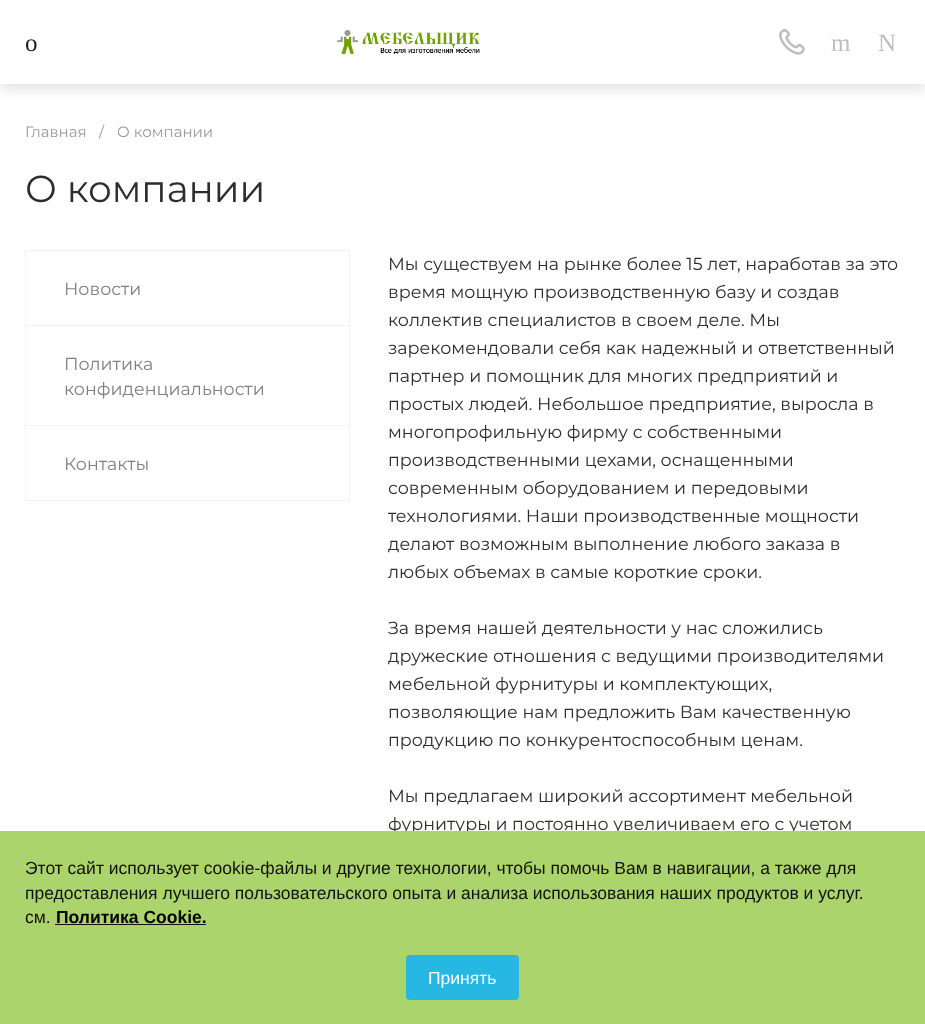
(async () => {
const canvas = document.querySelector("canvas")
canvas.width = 925
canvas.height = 1024
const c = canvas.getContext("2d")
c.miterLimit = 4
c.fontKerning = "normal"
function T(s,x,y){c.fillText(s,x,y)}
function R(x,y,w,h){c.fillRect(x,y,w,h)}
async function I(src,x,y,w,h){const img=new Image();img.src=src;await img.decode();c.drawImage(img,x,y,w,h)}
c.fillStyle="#fff"
R(0,0,925,1024)
c.fillStyle="#0000001a"
c.filter="blur(6px)"
c.beginPath()
c.rect(0,6,925,84)
c.fill()
c.filter="none"
c.fillStyle="#fff"
R(0,0,925,84)
c.font="25px Liberation Serif"
c.fillStyle="#1d1d1d"
T("o",25,51)
await I("1.png",337,30,143,24)
await I("2.png",779,29,26,26)
c.fillStyle="#bebebf"
T("m",831,51)
T("N",878,51)
c.font="15px Montserrat"
c.fillStyle="#9a9a9a"
T("Главная",25,137)
T("/",99,137)
T("О компании",117,137)
c.font="37.5px Montserrat"
c.fillStyle="#2d2d2d"
T("О компании",25,202)
c.strokeStyle="#f2f2f2"
c.strokeRect(25.5,250.5,324,75)
c.font="17.5px Montserrat"
c.fillStyle="#808080"
T("Новости",64,295)
c.fillStyle="#f2f2f2"
R(349,326,1,175)
R(25,425,325,1)
R(25,326,1,100)
c.fillStyle="#808080"
T("Политика",64,370)
T("конфиденциальности",64,395)
c.fillStyle="#f2f2f2"
R(25,500,325,1)
R(25,426,1,75)
c.fillStyle="#808080"
T("Контакты",64,470)
c.fillStyle="#2d2d2d"
T("Мы существуем на рынке более 15 лет, наработав за это",388,270)
T("время мощную производственную базу и создав",388,298)
T("коллектив специалистов в своем деле. Мы",388,326)
T("зарекомендовали себя как надежный и ответственный",388,354)
T("партнер и помощник для многих предприятий и",388,382)
T("простых людей. Небольшое предприятие, выросла в",388,410)
T("многопрофильную фирму с собственными",388,438)
T("производственными цехами, оснащенными",388,466)
T("современным оборудованием и передовыми",388,494)
T("технологиями. Наши производственные мощности",388,522)
T("делают возможным выполнение любого заказа в",388,550)
T("любых объемах в самые короткие сроки.",388,578)
T("За время нашей деятельности у нас сложились",388,634)
T("дружеские отношения с ведущими производителями",388,662)
T("мебельной фурнитуры и комплектующих,",388,690)
T("позволяющие нам предложить Вам качественную",388,718)
T("продукцию по конкурентоспособным ценам.",388,746)
T("Мы предлагаем широкий ассортимент мебельной",388,802)
T("фурнитуры и постоянно увеличиваем его с учетом",388,830)
c.fillStyle="#abd46c"
R(0,831,925,193)
c.font="17.5px Liberation Sans"
c.fillStyle="#111"
T("Этот сайт использует cookie-файлы и другие технологии, чтобы помочь Вам в навигации, а также для",25,874)
T("предоставления лучшего пользовательского опыта и анализа использования наших продуктов и услуг.",25,899)
T("см.",25,923)
c.font="bold 17.5px Liberation Sans"
c.fillStyle="#000"
T("Политика Cookie.",56,923)
c.fillStyle="#111"
R(55,924,151,1)
c.fillStyle="#26b8e2"
c.beginPath()
c.roundRect(407.5,956.5,110,42,2.5)
c.fill()
c.strokeStyle="#26b8e2"
c.lineWidth=3
c.stroke()
c.font="17.5px Liberation Sans"
c.fillStyle="#fff"
T("Принять",428,984)
})()
